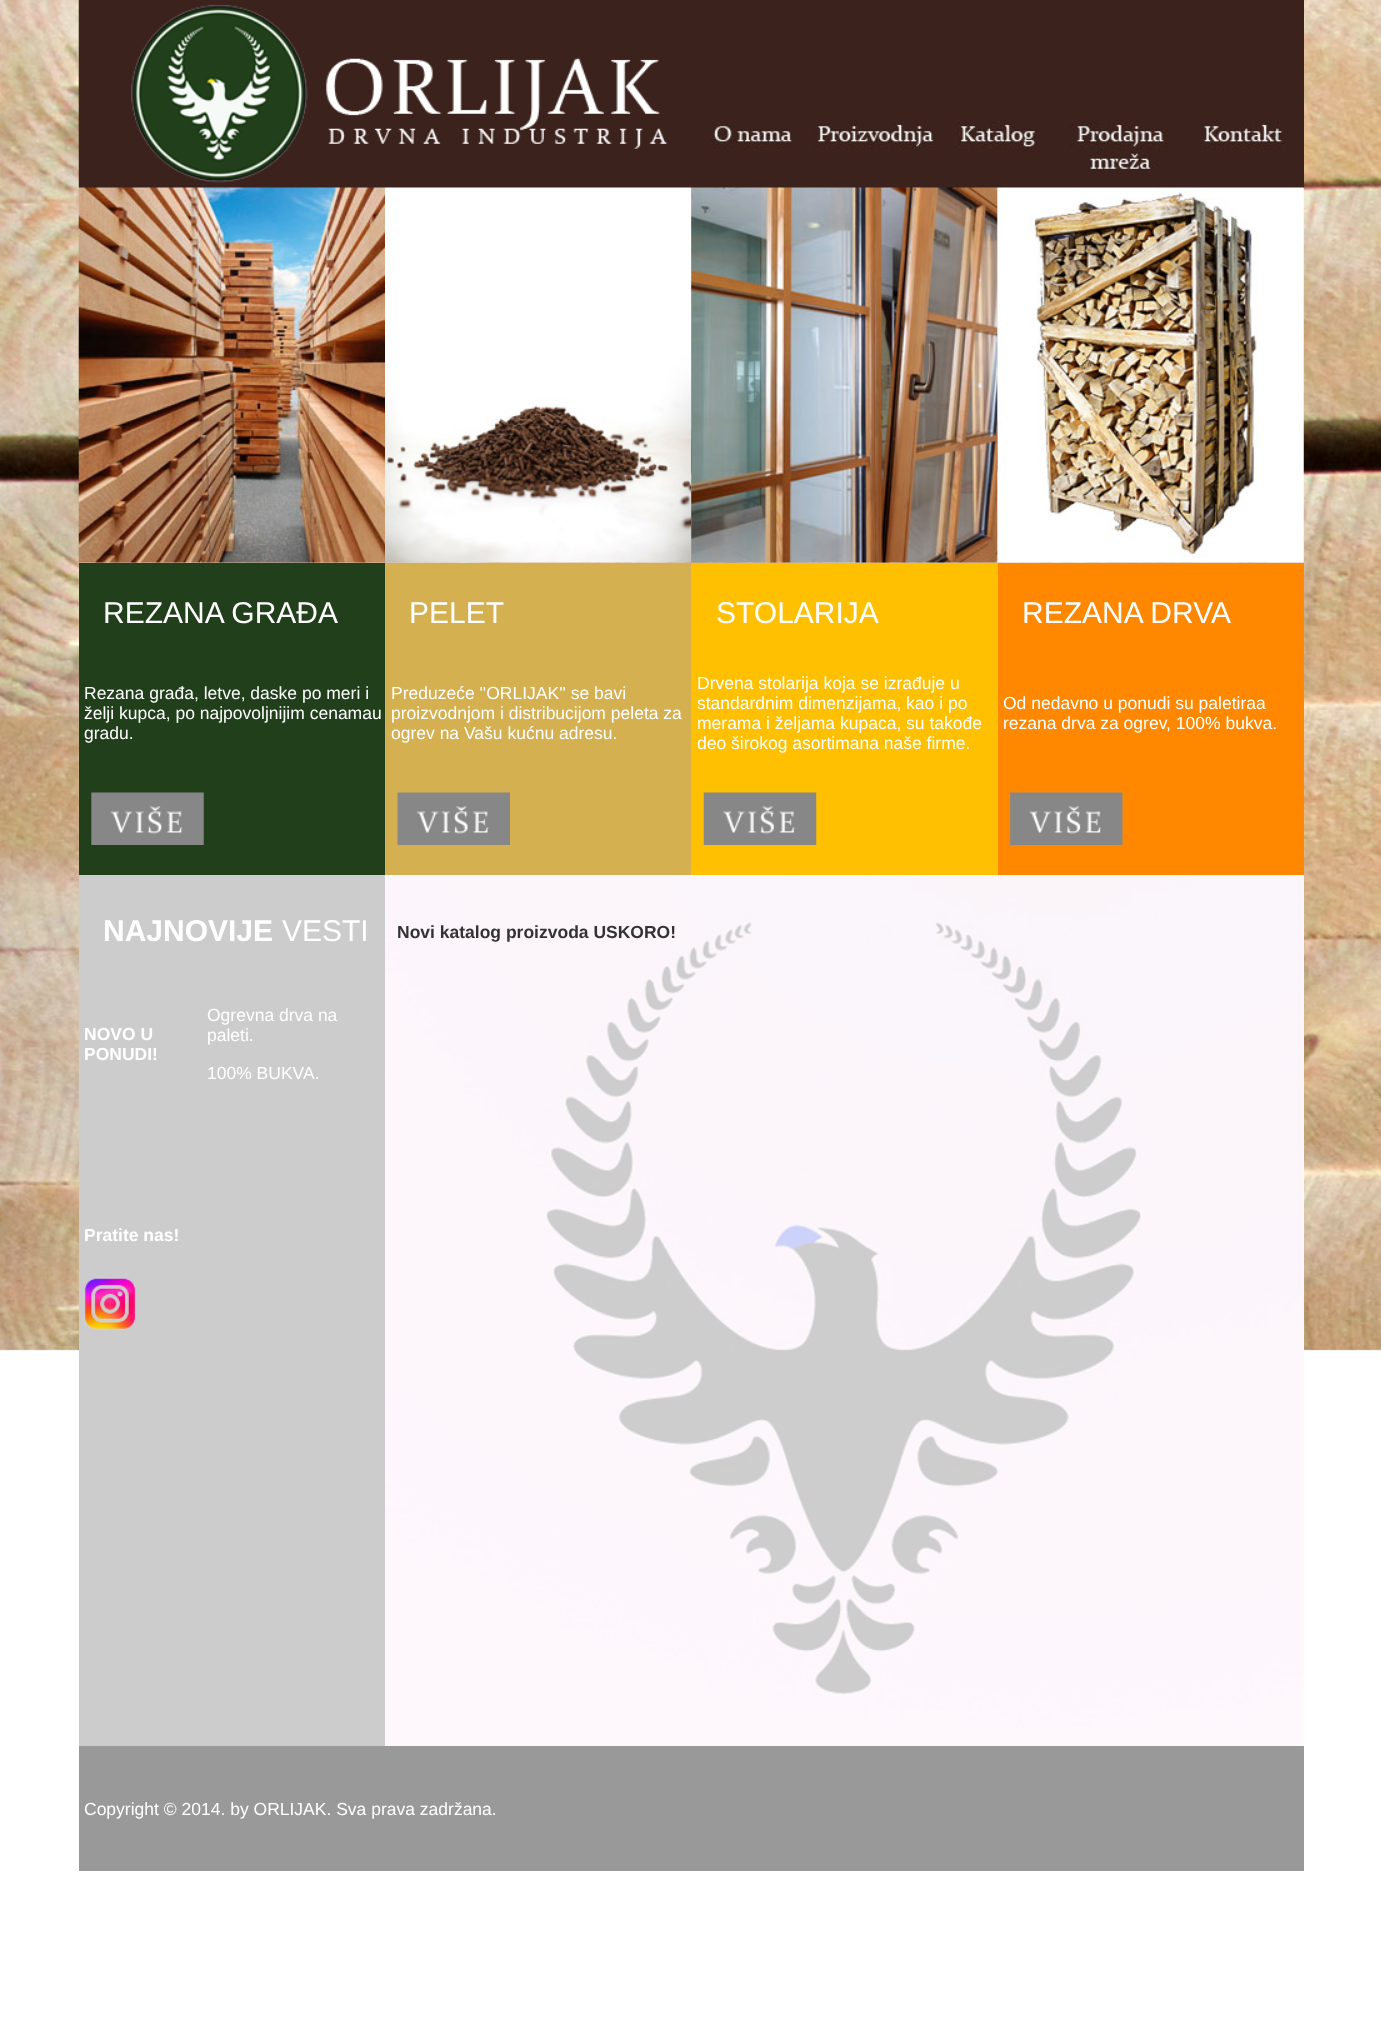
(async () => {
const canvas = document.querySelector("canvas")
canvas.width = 1381
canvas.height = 2038
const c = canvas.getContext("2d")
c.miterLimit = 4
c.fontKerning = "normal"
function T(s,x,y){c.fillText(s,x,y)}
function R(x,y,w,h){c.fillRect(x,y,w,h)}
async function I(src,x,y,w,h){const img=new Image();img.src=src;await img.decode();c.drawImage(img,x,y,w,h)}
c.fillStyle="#fff"
R(0,0,1381,2038)
await I("1.png",0,0,1381,1351)
c.fillStyle="#3c221c"
R(79,0,1225,188)
await I("2.png",78,0,590,188)
await I("3.png",711,120,81,30)
await I("4.png",814,120,120,30)
await I("5.png",956,120,81,30)
await I("6.png",1069,120,100,50)
await I("7.png",1201,120,90,30)
await I("8.png",78,187,307,376)
await I("9.png",385,187,307,376)
await I("10.png",691,187,307,376)
await I("11.png",997,187,307,376)
c.fillStyle="#203f1a"
R(79,563,306,312)
c.font="30px Liberation Sans"
c.fillStyle="#fff"
T("REZANA GRAĐA",103,623)
c.font="17.5px Liberation Sans"
T("Rezana građa, letve, daske po meri i",84,699)
T("želji kupca, po najpovoljnijim cenamau",84,719)
T("gradu.",84,739)
await I("12.png",91,792,113,53)
c.fillStyle="#d4b050"
R(385,563,306,312)
c.font="30px Liberation Sans"
c.fillStyle="#fff"
T("PELET",409,623)
c.font="17.5px Liberation Sans"
T("Preduzeće ''ORLIJAK'' se bavi",391,699)
T("proizvodnjom i distribucijom peleta za",391,719)
T("ogrev na Vašu kućnu adresu.",391,739)
await I("13.png",397,792,113,53)
c.fillStyle="#ffc001"
R(691,563,307,312)
c.font="30px Liberation Sans"
c.fillStyle="#fff"
T("STOLARIJA",716,623)
c.font="17.5px Liberation Sans"
T("Drvena stolarija koja se izrađuje u",697,689)
T("standardnim dimenzijama, kao i po",697,709)
T("merama i željama kupaca, su takođe",697,729)
T("deo širokog asortimana naše firme.",697,749)
await I("14.png",703,792,114,53)
c.fillStyle="#f80"
R(998,563,306,312)
c.font="30px Liberation Sans"
c.fillStyle="#fff"
T("REZANA DRVA",1022,623)
c.font="17.5px Liberation Sans"
T("Od nedavno u ponudi su paletiraa",1003,709)
T("rezana drva za ogrev, 100% bukva.",1003,729)
await I("15.png",1009,792,114,53)
c.fillStyle="#ccc"
R(79,875,306,871)
c.font="bold 30px Liberation Sans"
c.fillStyle="#fff"
T("NAJNOVIJE",103,941)
c.font="30px Liberation Sans"
T("VESTI",282,941)
c.font="bold 17.5px Liberation Sans"
T("NOVO U",84,1040)
T("PONUDI!",84,1060)
c.font="17.5px Liberation Sans"
T("Ogrevna drva na",207,1021)
T("paleti.",207,1041)
T("100% BUKVA.",207,1079)
c.font="bold 17.5px Liberation Sans"
T("Pratite nas!",84,1241)
await I("16.png",84,1277,52,53)
R(385,875,919,476)
await I("17.png",385,875,919,871)
c.fillStyle="#333"
T("Novi katalog proizvoda USKORO!",397,938)
c.fillStyle="#999"
R(79,1746,1225,125)
c.font="17.5px Liberation Sans"
c.fillStyle="#fff"
T("Copyright © 2014. by ORLIJAK. Sva prava zadržana.",84,1815)
})()
